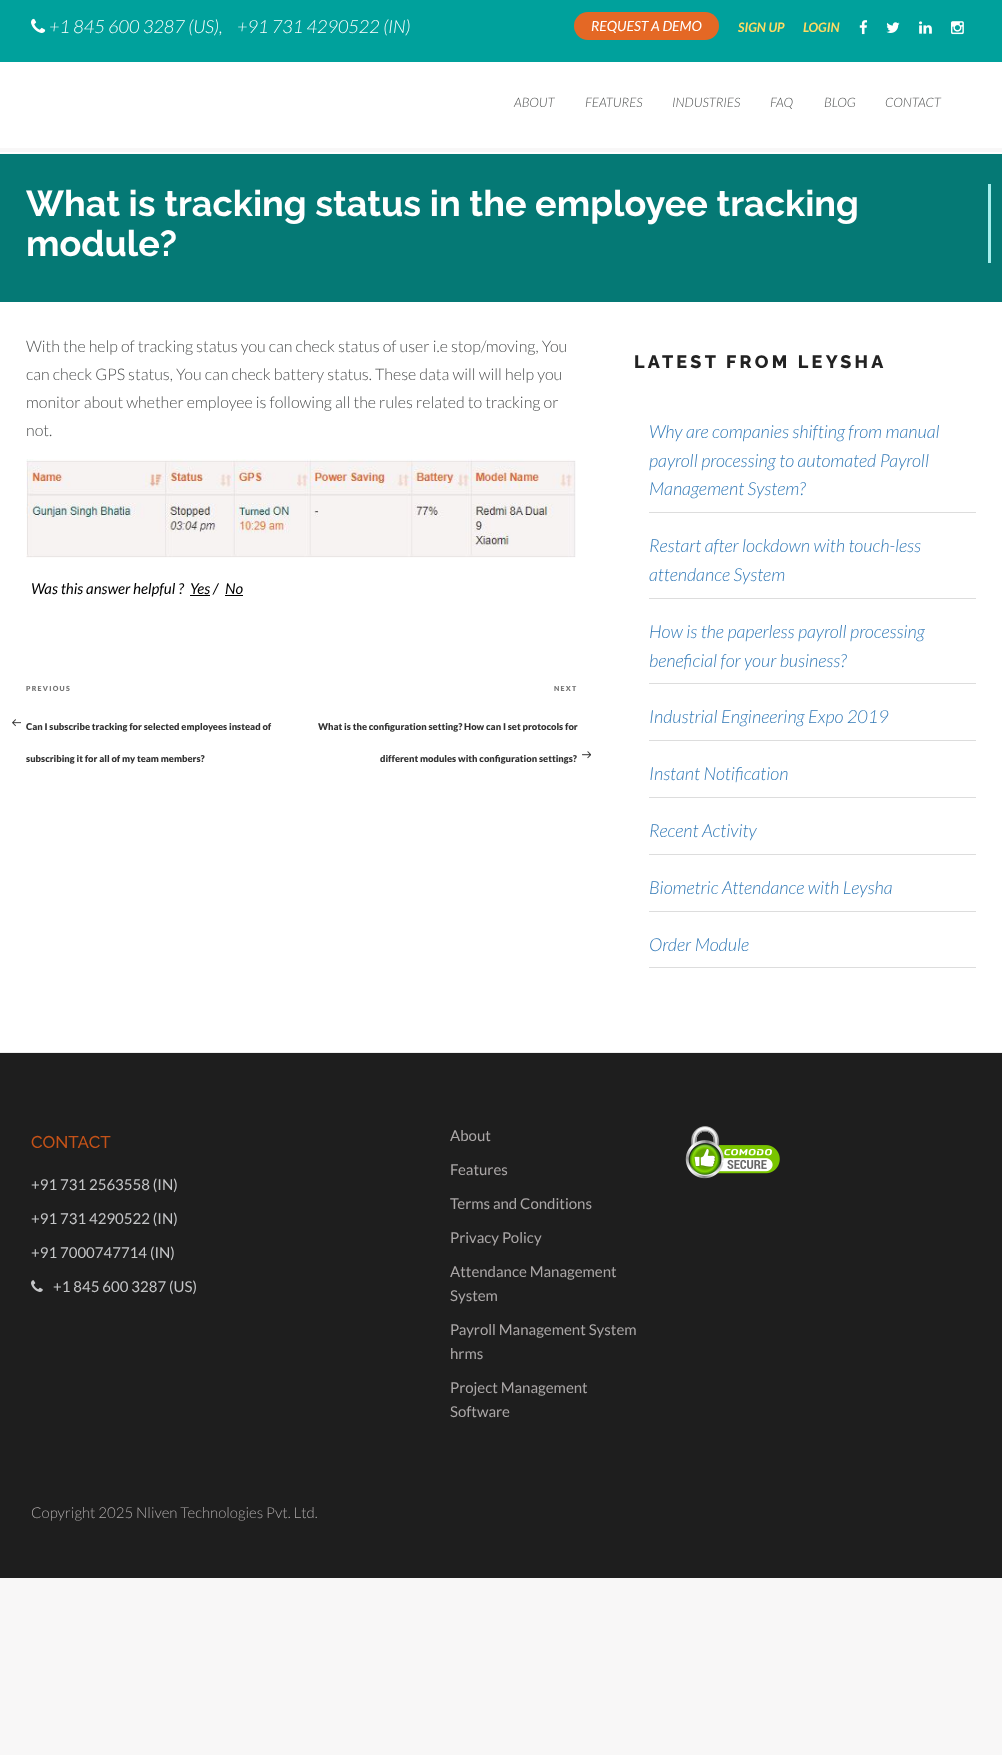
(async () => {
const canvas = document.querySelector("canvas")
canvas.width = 1002
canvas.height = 1755
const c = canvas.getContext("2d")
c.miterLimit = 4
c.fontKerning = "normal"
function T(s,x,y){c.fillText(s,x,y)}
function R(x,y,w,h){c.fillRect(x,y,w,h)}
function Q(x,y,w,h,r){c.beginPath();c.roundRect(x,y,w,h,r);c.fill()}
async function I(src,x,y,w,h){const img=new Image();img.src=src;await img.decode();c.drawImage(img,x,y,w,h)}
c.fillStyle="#f8f7f7"
R(0,0,1002,1755)
c.fillStyle="#00a19c"
R(0,0,1002,62)
await I("1.png",31,18,15,15)
c.font="italic 300 18px Lato"
c.fillStyle="#fff"
T("+1 845 600 3287 (US),",49,33)
T("+91 731 4290522 (IN)",237,33)
c.fillStyle="#e46825"
Q(574,12,145,28,14)
c.font="italic 14px Lato"
c.fillStyle="#fff"
T("REQUEST A DEMO",591,31)
c.font="italic bold 13px Lato"
c.fillStyle="#ffdb63"
T("SIGN UP",738,32)
T("LOGIN",803,32)
await I("2.png",859,20,9,15)
await I("3.png",886,22,14,11)
await I("4.png",919,21,13,13)
await I("5.png",951,21,13,14)
c.fillStyle="#fff"
R(0,62,1002,86)
c.font="italic 300 13px Lato"
c.fillStyle="#4d4f4f"
T("ABOUT",514,107)
T("FEATURES",585,107)
T("INDUSTRIES",672,107)
T("FAQ",770,107)
T("BLOG",824,107)
T("CONTACT",885,107)
c.fillStyle="#057975"
R(0,154,1002,148)
c.fillStyle="#fff"
R(0,152,1002,2)
c.fillStyle="#a5efed"
R(988,184,3,79)
c.font="bold 36px Raleway"
c.fillStyle="#fff"
T("What is tracking status in the employee tracking",26,216)
T("module?",26,256)
R(0,302,1002,750)
c.font="300 16px Lato"
c.fillStyle="#4d4f4f"
T("With the help of tracking status you can check status of user i.e stop/moving, You",26,352)
T("can check GPS status, You can check battery status. These data will will help you",26,380)
T("monitor about whether employee is following all the rules related to tracking or",26,408)
T("not.",26,436)
await I("6.png",26,459,550,99)
c.font="italic 15px Lato"
c.fillStyle="#000"
T("Was this answer helpful ?",31,594)
T("Yes /",190,594)
R(190,595,20,1)
T("No",225,594)
R(225,595,18,1)
c.letterSpacing="1.25px"
c.font="900 7px Lato"
c.fillStyle="#767676"
T("PREVIOUS",26,691)
await I("7.png",12,719,9,8)
c.letterSpacing="0px"
c.font="900 9.4px Lato"
c.fillStyle="#333"
T("Can I subscribe tracking for selected employees instead of",26,730)
T("subscribing it for all of my team members?",26,762)
c.letterSpacing="1.25px"
c.font="900 7px Lato"
c.fillStyle="#767676"
T("NEXT",554,691)
c.letterSpacing="0px"
c.font="900 9.4px Lato"
c.fillStyle="#333"
T("What is the configuration setting? How can I set protocols for",318,730)
T("different modules with configuration settings?",380,762)
await I("8.png",582,751,9,8)
c.letterSpacing="3.25px"
c.font="800 18px Raleway"
c.fillStyle="#222"
T("LATEST FROM LEYSHA",634,368)
c.fillStyle="#ddd"
R(649,512,327,1)
c.letterSpacing="0px"
c.font="italic 300 18px Lato"
c.fillStyle="#337ab7"
T("Why are companies shifting from manual",649,438)
T("payroll processing to automated Payroll",649,467)
T("Management System?",649,495)
c.fillStyle="#ddd"
R(649,598,327,1)
c.fillStyle="#337ab7"
T("Restart after lockdown with touch-less",649,552)
T("attendance System",649,581)
c.fillStyle="#ddd"
R(649,683,327,1)
c.fillStyle="#337ab7"
T("How is the paperless payroll processing",649,638)
T("beneficial for your business?",649,667)
c.fillStyle="#ddd"
R(649,740,327,1)
c.fillStyle="#337ab7"
T("Industrial Engineering Expo 2019",649,723)
c.fillStyle="#ddd"
R(649,797,327,1)
c.fillStyle="#337ab7"
T("Instant Notification",649,780)
c.fillStyle="#ddd"
R(649,854,327,1)
c.fillStyle="#337ab7"
T("Recent Activity",649,837)
c.fillStyle="#ddd"
R(649,911,327,1)
c.fillStyle="#337ab7"
T("Biometric Attendance with Leysha",649,894)
c.fillStyle="#ddd"
R(649,967,327,1)
c.fillStyle="#337ab7"
T("Order Module",649,951)
c.fillStyle="#eee"
R(0,1052,1002,1)
c.fillStyle="#1e1e1e"
R(0,1053,1002,525)
c.font="500 17px Raleway"
c.fillStyle="#c45218"
T("CONTACT",31,1148)
c.font="15px Lato"
c.fillStyle="#c5c6c8"
T("+91 731 2563558 (IN)",31,1190)
T("+91 731 4290522 (IN)",31,1224)
T("+91 7000747714 (IN)",31,1258)
await I("9.png",31,1280,12,12)
T("+1 845 600 3287 (US)",53,1292)
c.fillStyle="#aba7a7"
T("About",450,1141)
T("Features",450,1175)
T("Terms and Conditions",450,1209)
T("Privacy Policy",450,1243)
T("Attendance Management",450,1277)
T("System",450,1301)
T("Payroll Management System",450,1335)
T("hrms",450,1359)
T("Project Management",450,1393)
T("Software",450,1417)
await I("10.png",685,1126,95,53)
c.font="300 15px Lato"
T("Copyright 2025 Nliven Technologies Pvt. Ltd.",31,1518)
})()
